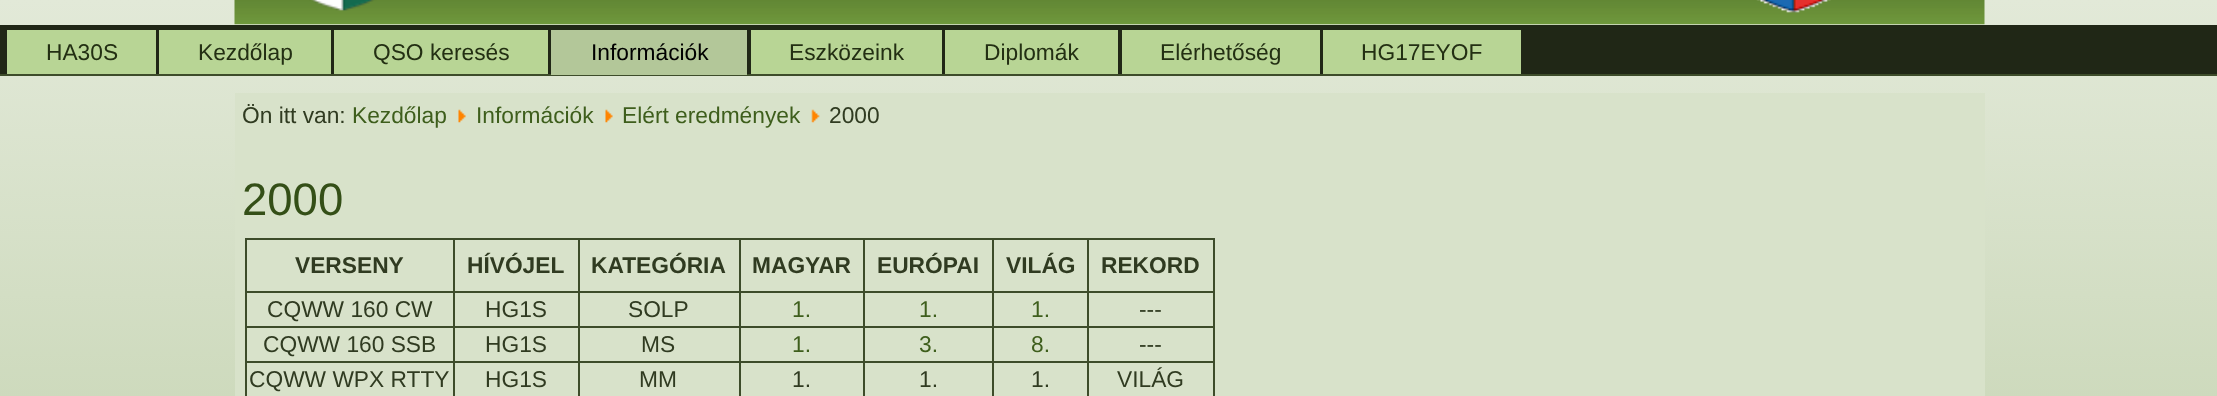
(async () => {
const canvas = document.querySelector("canvas")
canvas.width = 2217
canvas.height = 396
const c = canvas.getContext("2d")
c.miterLimit = 4
c.fontKerning = "normal"
function T(s,x,y){c.fillText(s,x,y)}
function R(x,y,w,h){c.fillRect(x,y,w,h)}
async function I(src,x,y,w,h){const img=new Image();img.src=src;await img.decode();c.drawImage(img,x,y,w,h)}
let gradient
c.fillStyle="#fff"
R(0,0,2217,396)
gradient = c.createLinearGradient(1109,0,1109,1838)
gradient.addColorStop(0,"#e2e9d8")
gradient.addColorStop(1,"#84a45b")
c.fillStyle = gradient
R(0,0,2217,396)
await I("1.png",234,0,1751,25)
c.fillStyle="#202716"
R(0,25,2217,49)
c.fillStyle="#3d4c2a"
R(0,74,2217,2)
c.fillStyle="#b8d595"
R(7,30,149,44)
c.font="22.75px Liberation Sans"
c.fillStyle="#232f13"
T("HA30S",46,60)
c.fillStyle="#b8d595"
R(159,30,172,44)
c.fillStyle="#232f13"
T("Kezdőlap",198,60)
c.fillStyle="#b8d595"
R(334,30,214,44)
c.fillStyle="#232f13"
T("QSO keresés",373,60)
c.fillStyle="#b3c799"
R(551,30,196,45)
c.fillStyle="#000"
T("Információk",591,60)
c.fillStyle="#b8d595"
R(751,30,191,44)
c.fillStyle="#232f13"
T("Eszközeink",789,60)
c.fillStyle="#b8d595"
R(945,30,173,44)
c.fillStyle="#232f13"
T("Diplomák",984,60)
c.fillStyle="#b8d595"
R(1122,30,198,44)
c.fillStyle="#232f13"
T("Elérhetőség",1160,60)
c.fillStyle="#b8d595"
R(1323,30,198,44)
c.fillStyle="#232f13"
T("HG17EYOF",1361,60)
c.fillStyle="#d8e2ca"
R(235,93,1750,303)
c.fillStyle="#303b21"
T("Ön itt van:",242,123)
c.fillStyle="#3e5e1c"
T("Kezdőlap",352,123)
await I("2.png",458,109,8,14)
T("Információk",476,123)
await I("2.png",605,109,8,14)
T("Elért eredmények",622,123)
await I("3.png",811,109,9,14)
c.fillStyle="#303b21"
T("2000",829,123)
c.font="45.5px Liberation Sans"
c.fillStyle="#344f17"
T("2000",242,215)
c.fillStyle="#3d4c2a"
R(1087,238,128,2)
R(1087,291,128,2)
R(1087,326,128,2)
R(1087,361,128,2)
R(1087,361,2,35)
R(992,361,97,2)
R(1087,326,2,36)
R(992,326,97,2)
R(1087,291,2,36)
R(992,291,97,2)
R(1087,238,2,54)
R(992,238,97,2)
R(992,361,2,35)
R(863,361,131,2)
R(992,326,2,36)
R(863,326,131,2)
R(992,291,2,36)
R(863,291,131,2)
R(992,238,2,54)
R(863,238,131,2)
R(863,361,2,35)
R(739,361,126,2)
R(863,326,2,36)
R(739,326,126,2)
R(863,291,2,36)
R(739,291,126,2)
R(863,238,2,54)
R(739,238,126,2)
R(739,361,2,35)
R(578,361,162,2)
R(739,326,2,36)
R(578,326,162,2)
R(739,291,2,36)
R(578,291,162,2)
R(739,238,2,54)
R(578,238,162,2)
R(578,361,2,35)
R(453,361,126,2)
R(578,326,2,36)
R(453,326,126,2)
R(578,291,2,36)
R(453,291,126,2)
R(578,238,2,54)
R(453,238,126,2)
R(453,361,2,35)
R(245,361,210,2)
R(453,326,2,36)
R(245,326,210,2)
R(453,291,2,36)
R(245,291,210,2)
R(453,238,2,54)
R(245,238,210,2)
R(245,361,2,35)
R(245,326,2,36)
R(245,291,2,36)
R(245,238,2,54)
c.font="bold 22.75px Liberation Sans"
c.fillStyle="#303b21"
T("VERSENY",295,273)
T("HÍVÓJEL",467,273)
T("KATEGÓRIA",591,273)
T("MAGYAR",752,273)
T("EURÓPAI",877,273)
T("VILÁG",1006,273)
c.fillStyle="#3d4c2a"
R(1213,361,2,35)
R(1213,326,2,36)
R(1213,291,2,36)
R(1213,238,2,54)
c.fillStyle="#303b21"
T("REKORD",1101,273)
c.font="22.75px Liberation Sans"
T("CQWW 160 CW",267,317)
T("HG1S",485,317)
T("SOLP",628,317)
c.fillStyle="#3e5e1c"
T("1.",792,317)
T("1.",919,317)
T("1.",1031,317)
c.fillStyle="#303b21"
T("---",1139,317)
T("CQWW 160 SSB",263,352)
T("HG1S",485,352)
T("MS",641,352)
c.fillStyle="#3e5e1c"
T("1.",792,352)
T("3.",919,352)
T("8.",1031,352)
c.fillStyle="#303b21"
T("---",1139,352)
T("CQWW WPX RTTY",249,387)
T("HG1S",485,387)
T("MM",639,387)
T("1.",792,387)
T("1.",919,387)
T("1.",1031,387)
T("VILÁG",1117,387)
})()
